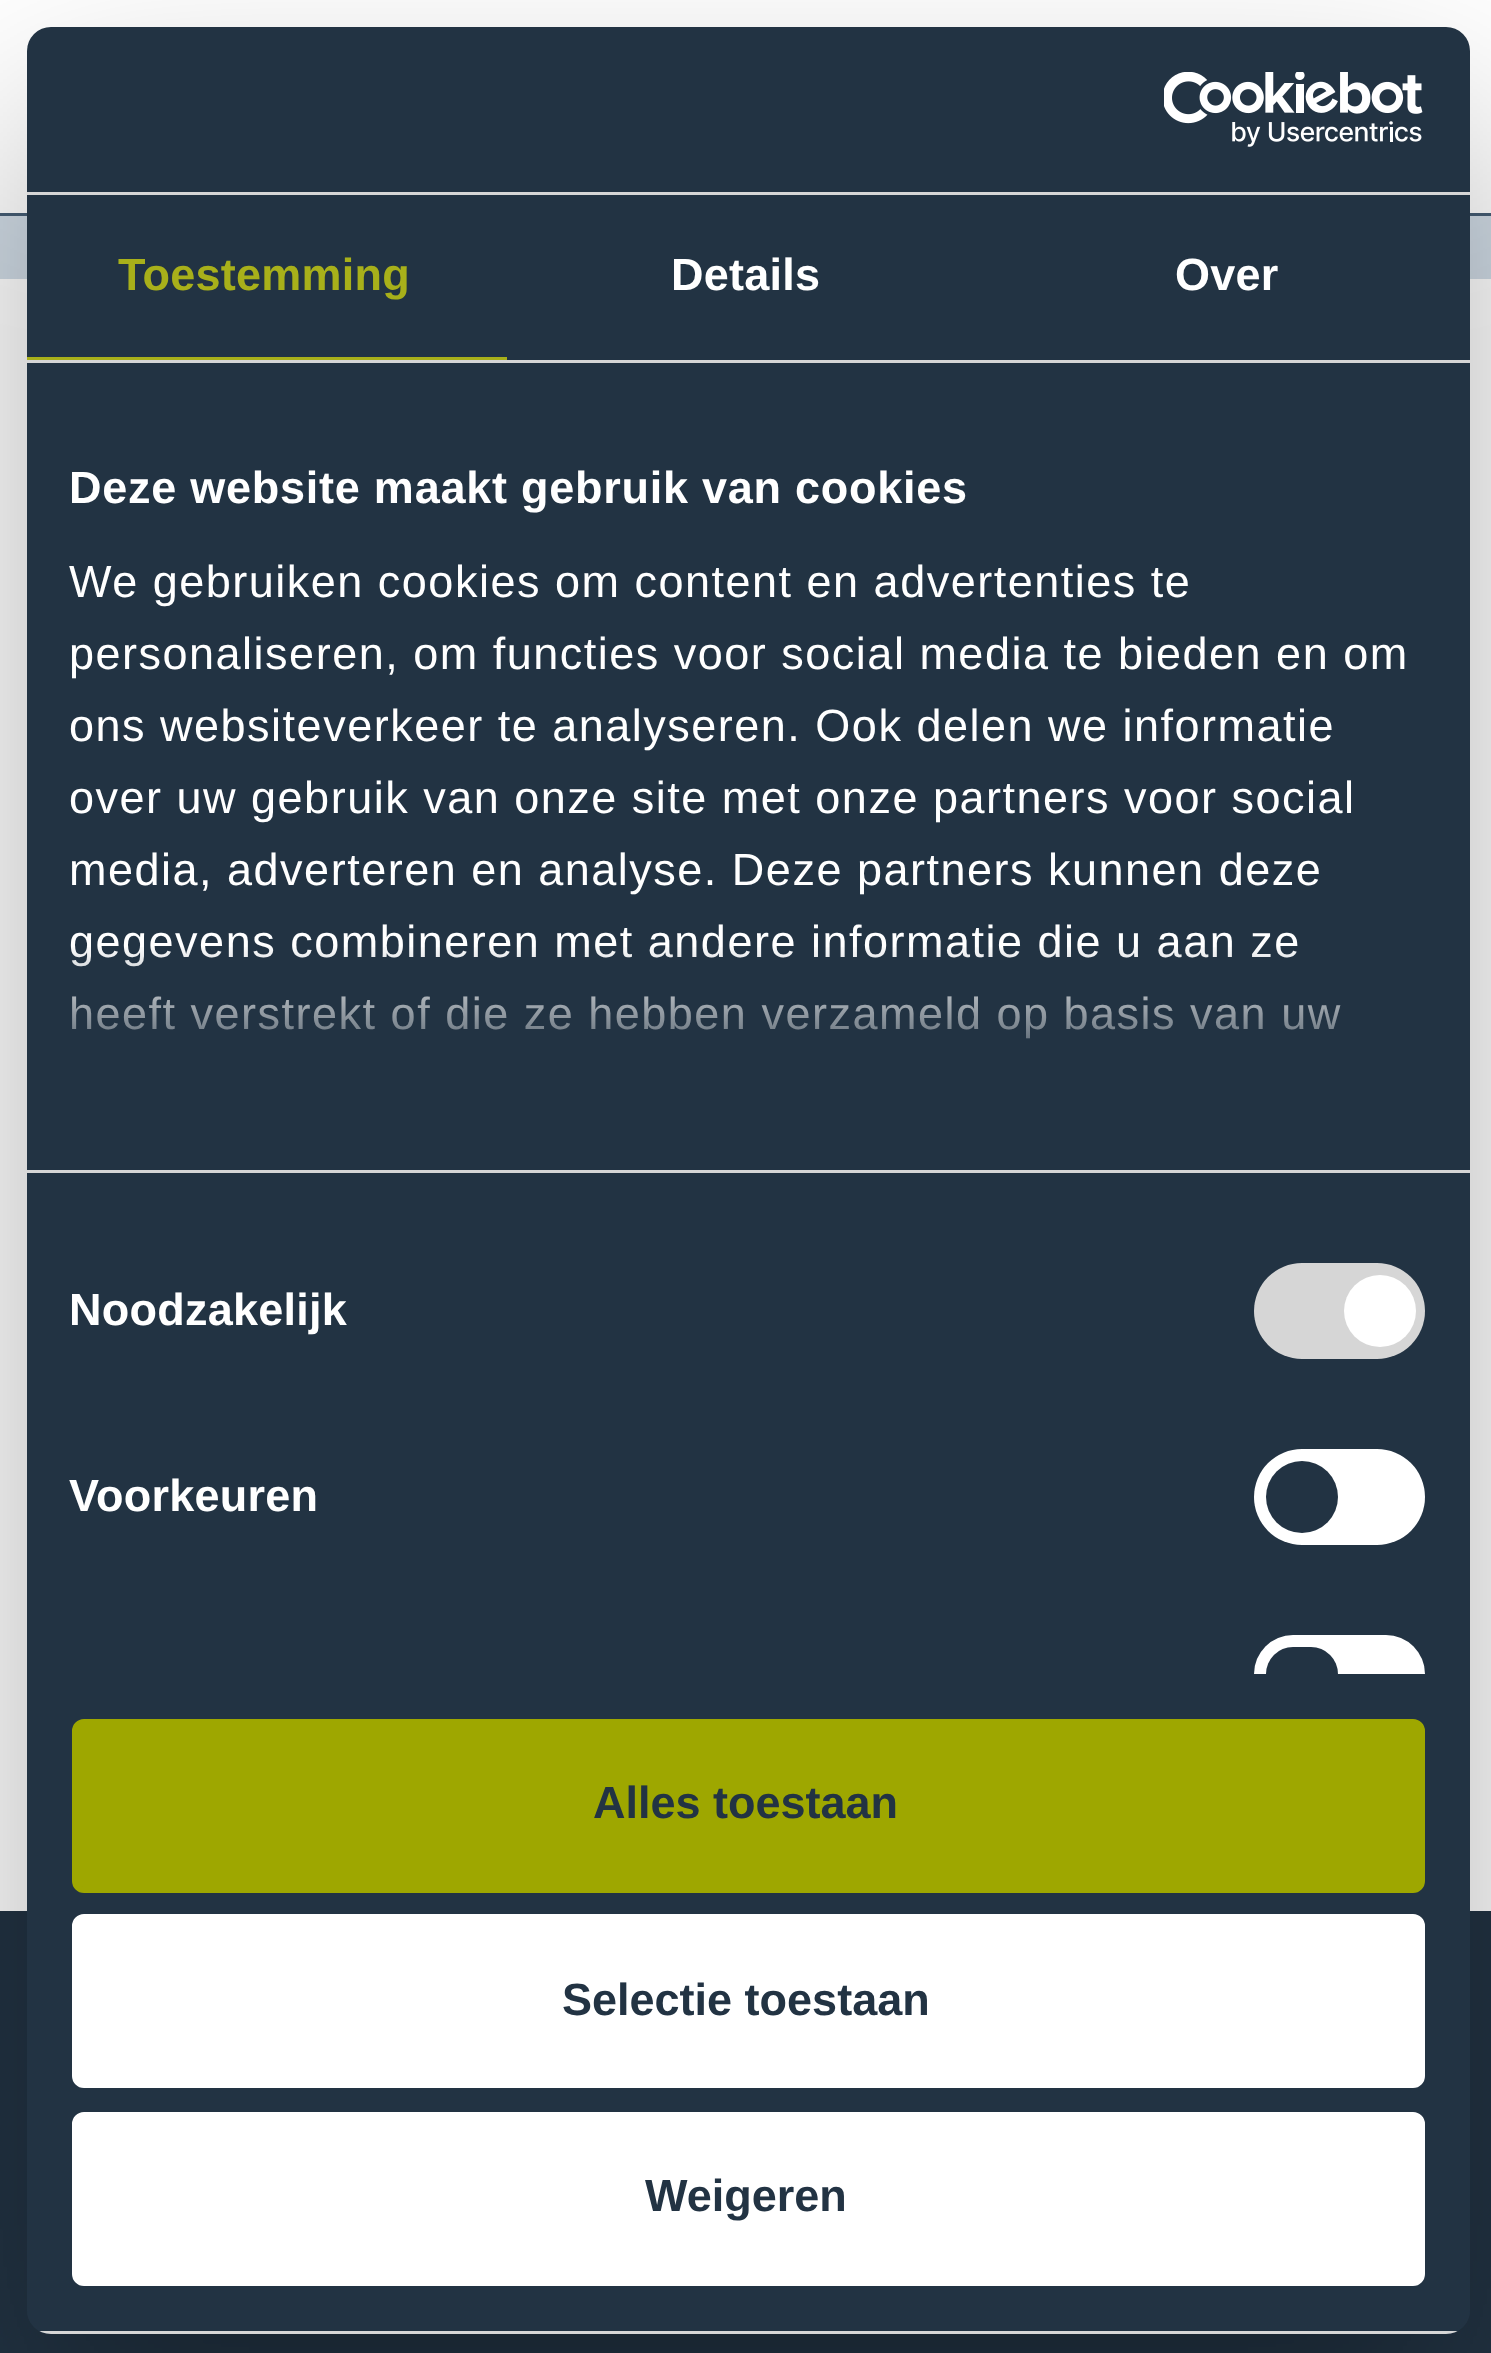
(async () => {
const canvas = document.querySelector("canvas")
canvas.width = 1491
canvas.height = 2353
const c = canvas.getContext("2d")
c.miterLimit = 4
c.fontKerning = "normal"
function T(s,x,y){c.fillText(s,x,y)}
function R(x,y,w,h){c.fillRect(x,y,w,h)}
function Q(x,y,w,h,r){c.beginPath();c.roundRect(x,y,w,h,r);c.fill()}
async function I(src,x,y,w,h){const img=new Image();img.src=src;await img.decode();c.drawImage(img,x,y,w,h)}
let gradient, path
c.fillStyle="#fff"
R(0,0,1491,2353)
c.fillStyle="#465e75"
R(0,213,1491,3)
c.fillStyle="#d1dce6"
R(0,216,1491,63)
c.fillStyle="#223343"
R(0,1911,1491,442)
c.save()
path = new Path2D("M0 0h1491v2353h-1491zm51 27h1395c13.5 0 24 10.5 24 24v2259c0 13.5-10.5 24-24 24h-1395c-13.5 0-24-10.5-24-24v-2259c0-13.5 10.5-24 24-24z")
c.clip(path,"evenodd")
c.fillStyle="#0000004d"
c.filter="blur(102px)"
c.beginPath()
c.roundRect(27,123,1443,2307,24)
c.fill()
c.filter="none"
c.restore()
Q(27,27,1443,2307,24)
c.fillStyle="#d6d6d6"
R(27,192,1443,3)
await I("1.png",1164,72,259,75)
R(27,360,1443,3)
c.fillStyle="#a8b01a"
R(27,357,480,3)
c.letterSpacing="0.25px"
c.font="bold 45px Liberation Sans"
T("Toestemming",118,290)
c.fillStyle="#fff"
T("Details",671,290)
T("Over",1175,290)
c.fillStyle="#d6d6d6"
R(27,1170,1443,3)
c.letterSpacing="0.75px"
c.fillStyle="#fff"
T("Deze website maakt gebruik van cookies",69,503)
c.letterSpacing="1.5px"
c.font="45px Liberation Sans"
T("We gebruiken cookies om content en advertenties te",69,597)
T("personaliseren, om functies voor social media te bieden en om",69,669)
T("ons websiteverkeer te analyseren. Ook delen we informatie",69,741)
T("over uw gebruik van onze site met onze partners voor social",69,813)
T("media, adverteren en analyse. Deze partners kunnen deze",69,885)
T("gegevens combineren met andere informatie die u aan ze",69,957)
T("heeft verstrekt of die ze hebben verzameld op basis van uw",69,1029)
gradient = c.createLinearGradient(728,1169,728,944)
gradient.addColorStop(0,"#223343")
gradient.addColorStop(.5,"#223343cc")
gradient.addColorStop(1,"#22334300")
c.fillStyle = gradient
R(71,947,1270,92)
c.letterSpacing="0.25px"
c.font="bold 45px Liberation Sans"
c.fillStyle="#fff"
T("Noodzakelijk",69,1325)
c.fillStyle="#d6d6d6"
Q(1254,1263,171,96,48)
c.fillStyle="#fff"
c.beginPath()
c.arc(1380,1311,36,0,7)
c.fill()
T("Voorkeuren",69,1511)
Q(1254,1449,171,96,48)
c.fillStyle="#223343"
c.beginPath()
c.arc(1302,1497,36,0,7)
c.fill()
c.fillStyle="#fff"
c.beginPath()
c.roundRect(1254,1635,171,39,[48,48,0,0])
c.fill()
c.fillStyle="#223343"
c.beginPath()
c.roundRect(1266,1647,72,27,[36,36,0,0])
c.fill()
c.save()
c.beginPath()
c.roundRect(27,27,1443,2307,24)
c.clip()
c.fillStyle="#d6d6d6"
R(39,2331,1419,3)
c.restore()
c.fillStyle="#9ea700"
c.beginPath()
c.roundRect(75,1722,1347,168,9)
c.fill()
c.strokeStyle="#9ea700"
c.lineWidth=6
c.stroke()
c.letterSpacing="0px"
c.fillStyle="#223343"
T("Alles toestaan",593,1818)
c.fillStyle="#fff"
c.beginPath()
c.roundRect(75,1917,1347,168,9)
c.fill()
c.strokeStyle="#fff"
c.stroke()
c.fillStyle="#223343"
T("Selectie toestaan",562,2015)
c.fillStyle="#fff"
c.beginPath()
c.roundRect(75,2115,1347,168,9)
c.fill()
c.stroke()
c.fillStyle="#223343"
T("Weigeren",645,2211)
})()
